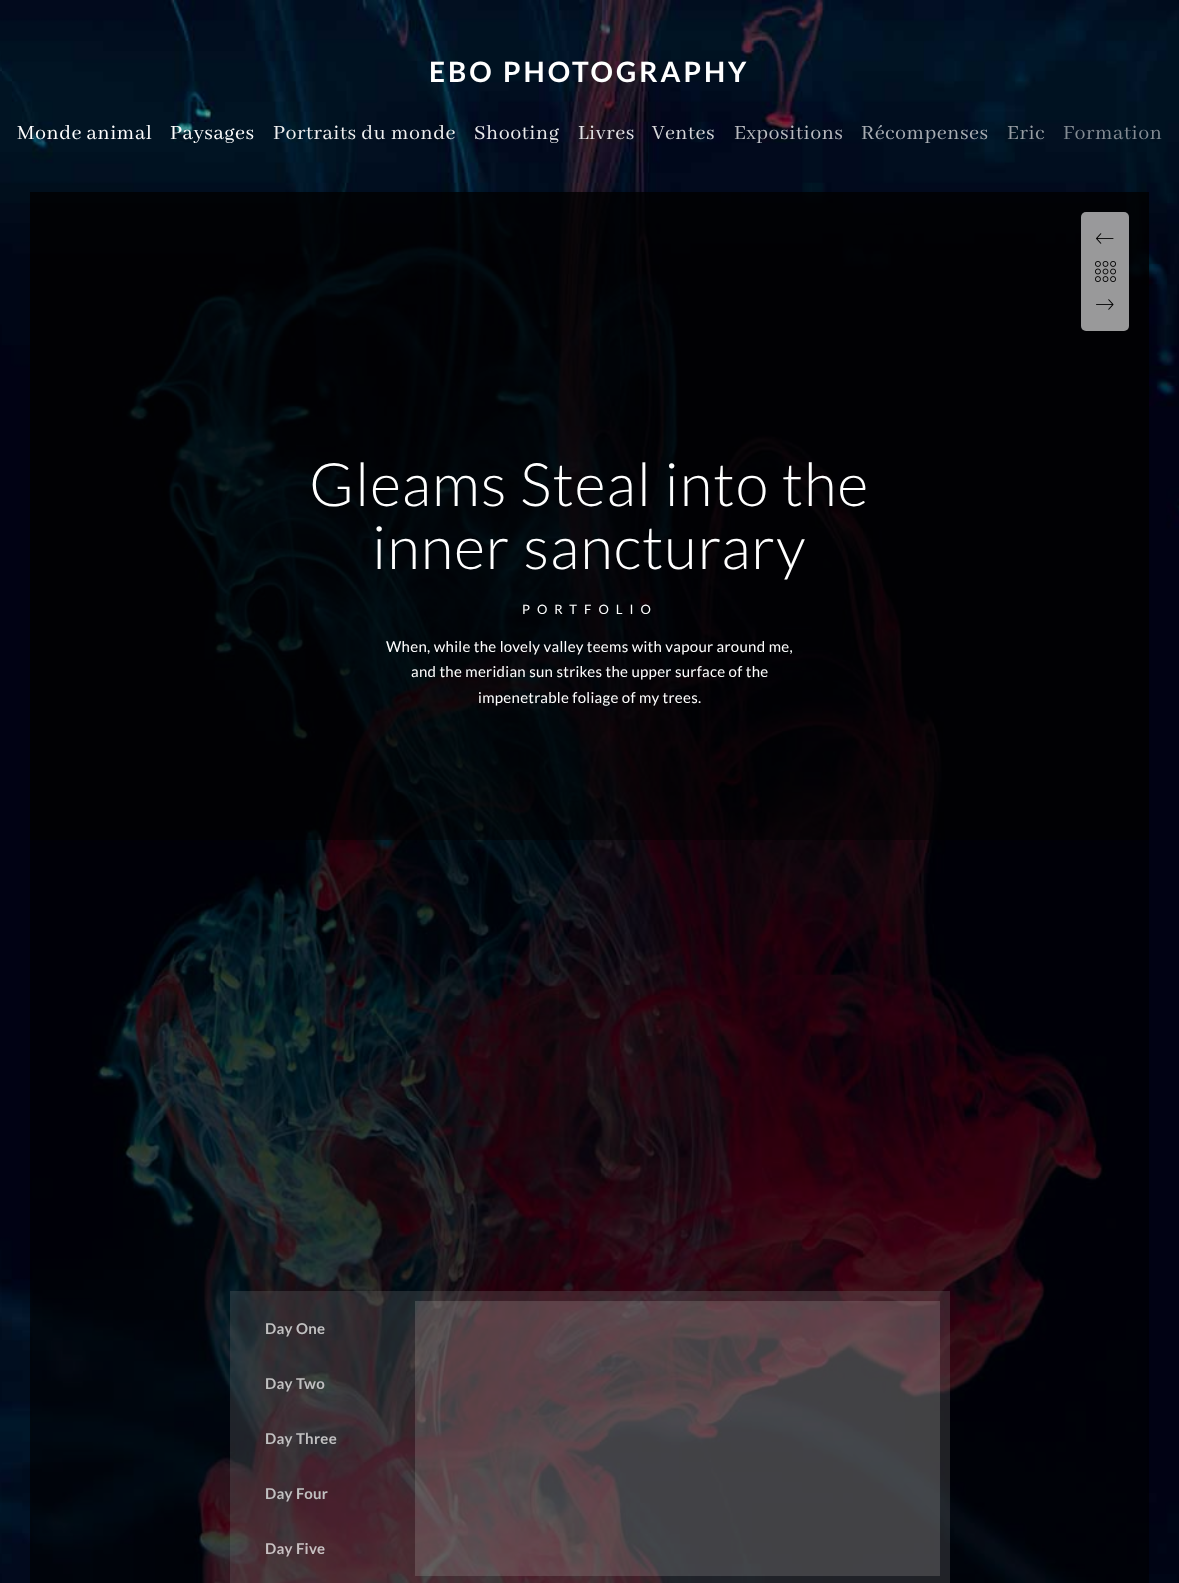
(async () => {
const canvas = document.querySelector("canvas")
canvas.width = 1179
canvas.height = 1583
const c = canvas.getContext("2d")
c.miterLimit = 4
c.fontKerning = "normal"
function T(s,x,y){c.fillText(s,x,y)}
function R(x,y,w,h){c.fillRect(x,y,w,h)}
function Q(x,y,w,h,r){c.beginPath();c.roundRect(x,y,w,h,r);c.fill()}
async function I(src,x,y,w,h){const img=new Image();img.src=src;await img.decode();c.drawImage(img,x,y,w,h)}
c.fillStyle="#fff"
R(0,0,1179,1583)
await I("1.png",0,0,1179,1583)
c.letterSpacing="3px"
c.font="bold 28px Lato"
T("EBO PHOTOGRAPHY",429,82)
c.letterSpacing="0.5px"
c.font="22px Abhaya Libre"
T("Monde animal",17,139)
T("Paysages",170,139)
c.fillStyle="#f0f1f2"
T("Portraits du monde",273,139)
c.fillStyle="#e9eaeb"
T("Shooting",474,139)
c.fillStyle="#e3e2e4"
T("Livres",578,139)
c.fillStyle="#d5d6d9"
T("Ventes",652,139)
c.fillStyle="#b9bbc0"
T("Expositions",734,139)
c.fillStyle="#a8adb3"
T("Récompenses",861,139)
c.fillStyle="#969da3"
T("Eric",1007,139)
c.fillStyle="#838b93"
T("Formation",1063,139)
c.fillStyle="#00000099"
R(30,192,1119,1391)
c.fillStyle="#02020282"
R(30,192,1119,648)
c.fillStyle="#ffffff99"
Q(1081,212,48,119,5)
await I("2.png",1096,233,18,11)
await I("3.png",1095,261,21,21)
await I("4.png",1096,299,18,11)
c.letterSpacing="1px"
c.font="300 60px Lato"
c.fillStyle="#fff"
T("Gleams Steal into the",309,506)
T("inner sancturary",372,569)
c.letterSpacing="7px"
c.font="13px Lato"
T("PORTFOLIO",522,614)
c.letterSpacing="0.3px"
c.font="15px Lato"
T("When, while the lovely valley teems with vapour around me,",386,652)
T("and the meridian sun strikes the upper surface of the",411,677)
T("impenetrable foliage of my trees.",478,703)
c.fillStyle="#7a7a7a42"
R(230,1291,720,292)
c.font="bold 15px Lato"
c.fillStyle="#c1c0c1"
T("Day One",265,1334)
T("Day Two",265,1389)
T("Day Three",265,1444)
T("Day Four",265,1499)
c.fillStyle="#c8c1c2"
T("Day Five",265,1554)
c.fillStyle="#ddd9d42e"
R(415,1301,525,275)
})()
